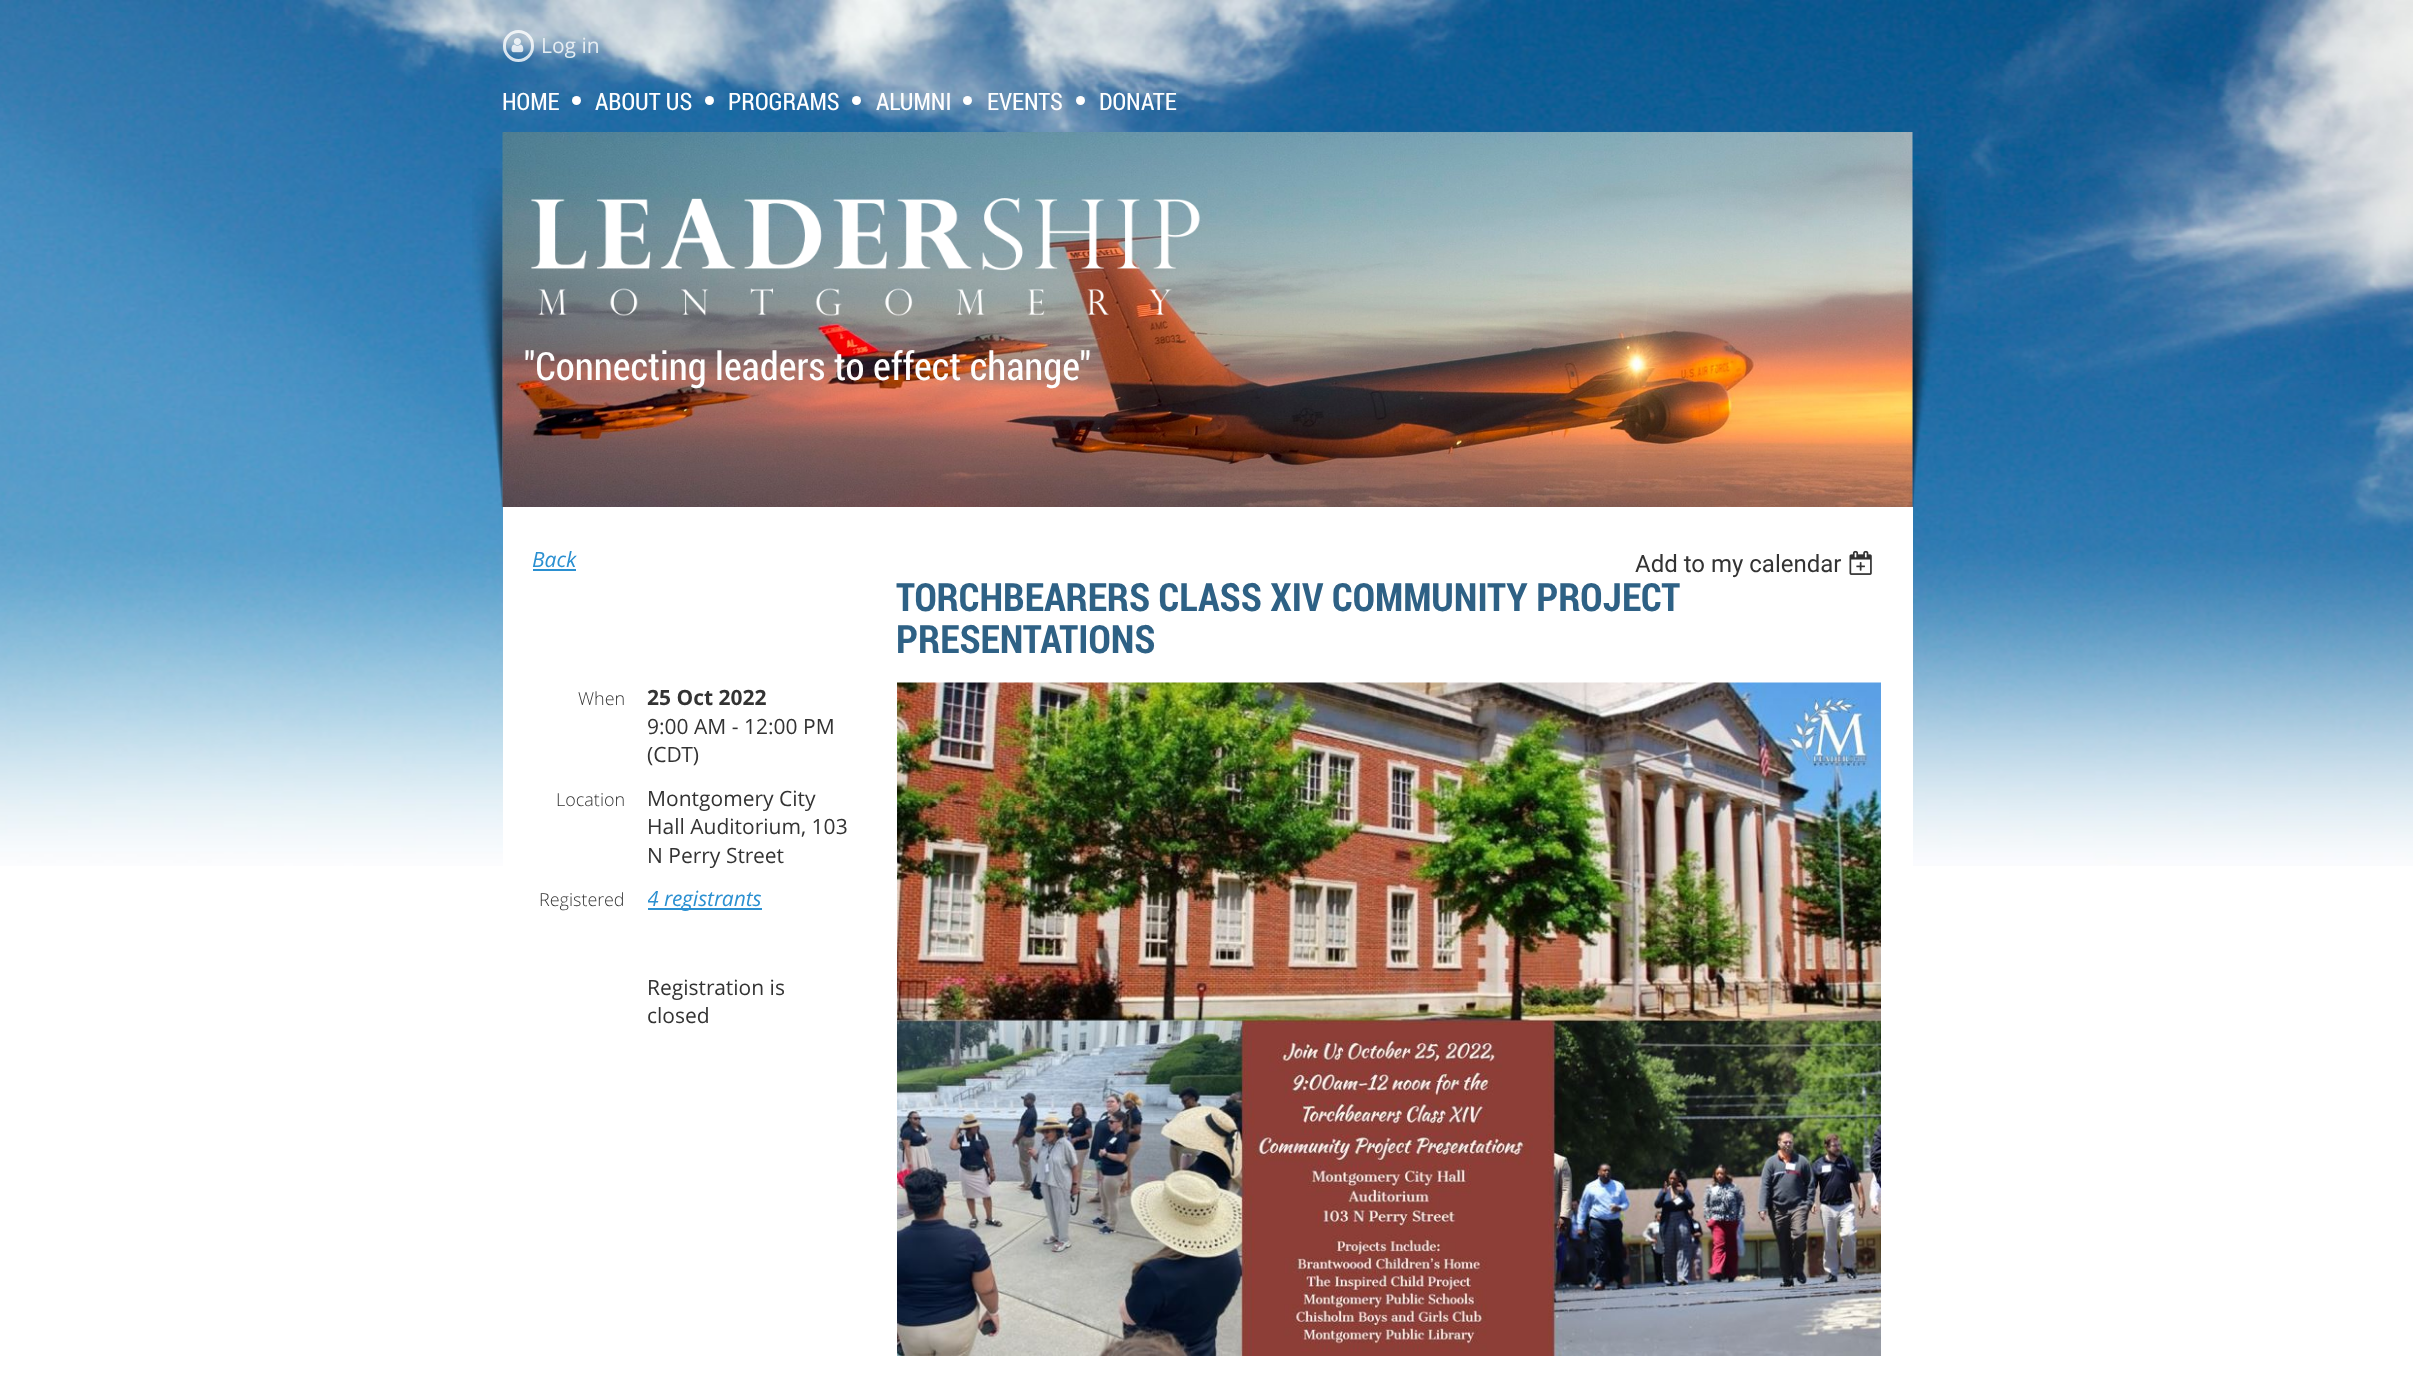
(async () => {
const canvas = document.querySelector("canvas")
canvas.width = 2413
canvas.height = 1387
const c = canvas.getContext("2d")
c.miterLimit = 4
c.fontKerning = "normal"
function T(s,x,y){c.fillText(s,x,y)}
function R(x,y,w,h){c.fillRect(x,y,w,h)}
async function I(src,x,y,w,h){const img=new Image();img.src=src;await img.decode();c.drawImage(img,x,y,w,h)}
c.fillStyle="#fff"
R(0,0,2413,1387)
await I("1.png",0,0,2413,866)
c.beginPath()
c.roundRect(504.5,31.5,28,29,14)
c.strokeStyle="#ffffffcc"
c.lineWidth=3
c.stroke()
await I("2.png",511,38,13,15)
c.font="21px Open Sans"
c.fillStyle="#e6edf2"
T("Log in",541,53)
c.font="24px Roboto Condensed"
c.fillStyle="#fefefe"
T("HOME",502,110)
c.fillStyle="#fff"
c.beginPath()
c.arc(576.5,100.5,4.5,0,7)
c.fill()
c.fillStyle="#fefefe"
T("ABOUT US",595,110)
c.fillStyle="#fff"
c.beginPath()
c.arc(709.5,100.5,4.5,0,7)
c.fill()
c.fillStyle="#fefefe"
T("PROGRAMS",728,110)
c.fillStyle="#fff"
c.beginPath()
c.arc(856.5,100.5,4.5,0,7)
c.fill()
c.fillStyle="#fefefe"
T("ALUMNI",876,110)
c.fillStyle="#fff"
c.beginPath()
c.arc(967.5,100.5,4.5,0,7)
c.fill()
c.fillStyle="#fefefe"
T("EVENTS",987,110)
c.fillStyle="#fff"
c.beginPath()
c.arc(1080.5,100.5,4.5,0,7)
c.fill()
c.fillStyle="#fefefe"
T("DONATE",1099,110)
await I("3.png",472,168,31,339)
await I("6.png",1912,169,34,338)
await I("4.png",502,132,1411,375)
await I("5.png",531,197,669,119)
c.font="39px Roboto Condensed"
T("\"Connecting leaders to effect change\"",524,380)
c.fillStyle="#fff"
R(503,507,1410,359)
c.font="italic 21px Open Sans"
c.fillStyle="#2b90d1"
T("Back",532,567)
R(533,569,43,2)
c.font="24px Roboto"
c.fillStyle="#333"
T("Add to my calendar",1635,572)
await I("7.png",1849,550,23,25)
c.font="bold 39px Roboto Condensed"
c.fillStyle="#2e6185"
T("TORCHBEARERS CLASS XIV COMMUNITY PROJECT",896,611)
T("PRESENTATIONS",896,653)
c.font="300 18px Open Sans"
c.fillStyle="#333"
T("When",578,705)
c.font="bold 21px Open Sans"
T("25 Oct 2022",647,705)
c.font="21px Open Sans"
T("9:00 AM - 12:00 PM",647,734)
T("(CDT)",647,762)
c.font="300 18px Open Sans"
T("Location",556,806)
c.font="21px Open Sans"
T("Montgomery City",647,806)
T("Hall Auditorium, 103",647,834)
T("N Perry Street",647,863)
c.font="300 18px Open Sans"
T("Registered",539,906)
c.fillStyle="#2b90d1"
R(648,908,114,2)
c.save()
c.beginPath()
c.rect(648,884,114,28)
c.clip()
c.font="italic 21px Open Sans"
T("4 registrants",647,906)
c.restore()
c.font="21px Open Sans"
c.fillStyle="#333"
T("Registration is",647,995)
T("closed",647,1023)
await I("8.png",897,682,984,674)
})()
